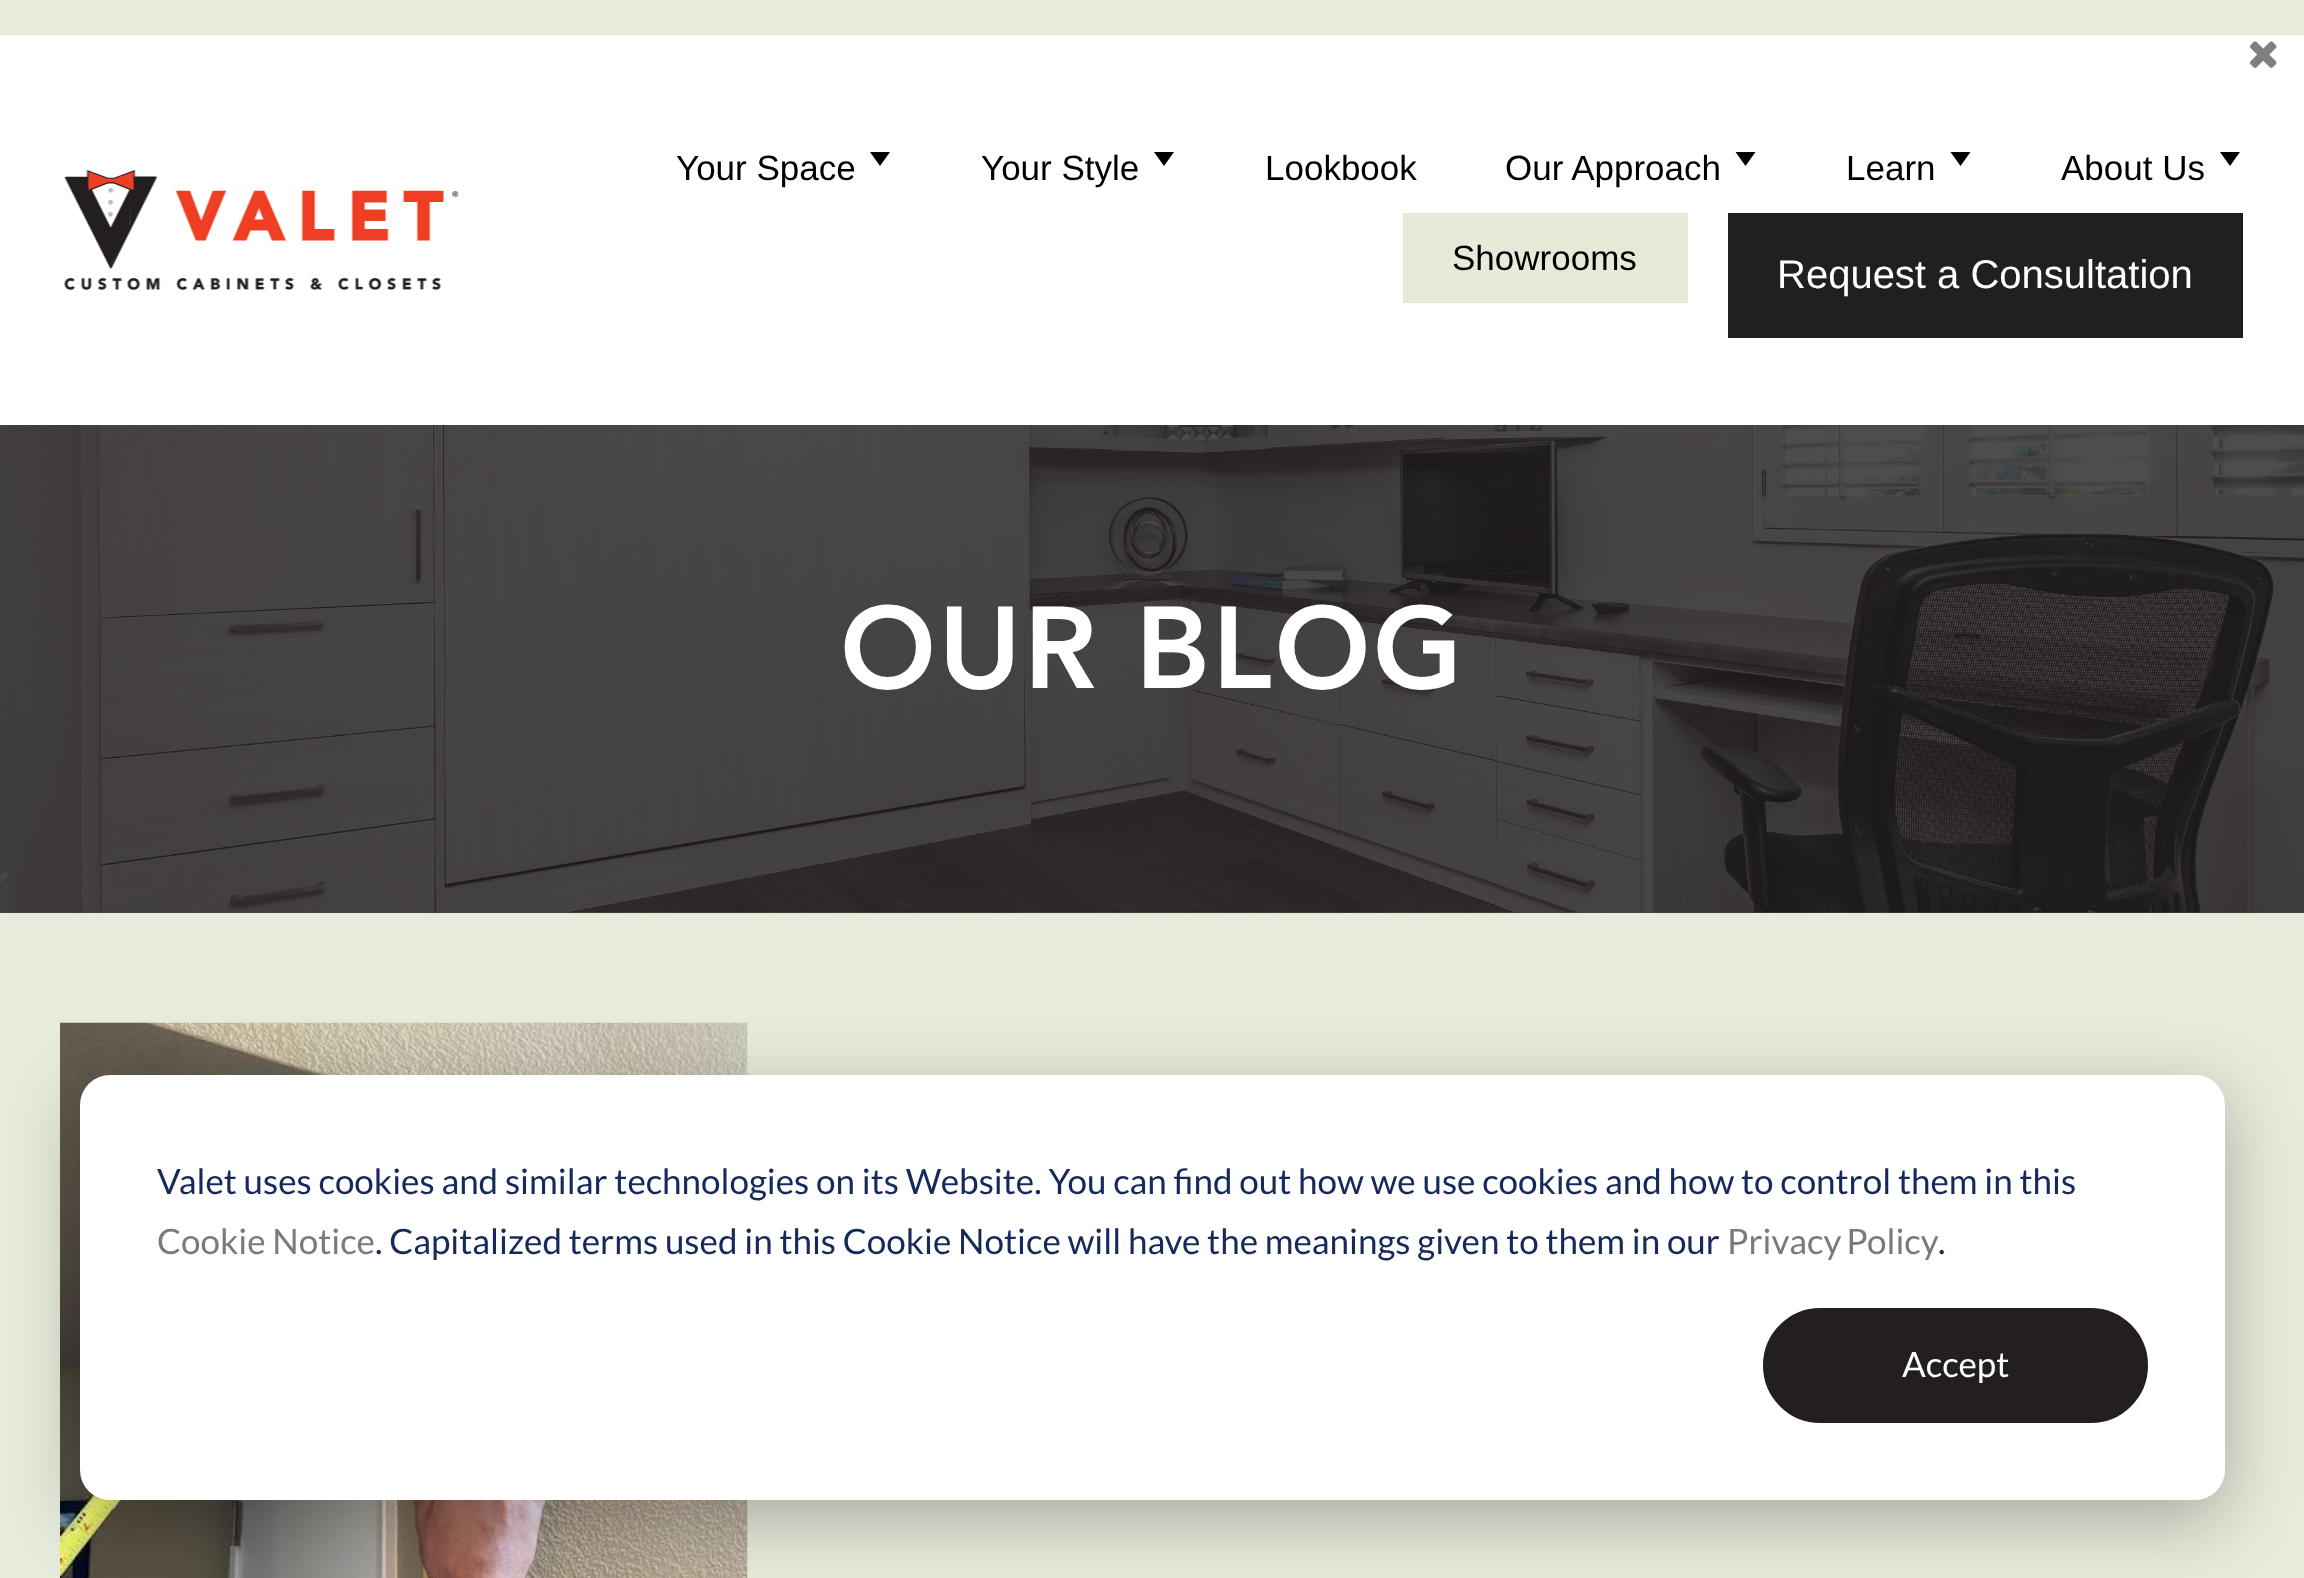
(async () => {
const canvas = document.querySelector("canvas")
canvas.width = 2304
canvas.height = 1578
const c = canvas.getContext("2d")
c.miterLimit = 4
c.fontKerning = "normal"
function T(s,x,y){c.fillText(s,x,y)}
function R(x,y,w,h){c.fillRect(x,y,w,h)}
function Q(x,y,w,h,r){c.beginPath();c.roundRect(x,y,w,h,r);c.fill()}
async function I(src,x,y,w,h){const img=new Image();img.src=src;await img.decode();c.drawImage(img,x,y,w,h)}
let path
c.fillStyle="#e7ebdb"
R(0,0,2304,1578)
c.fillStyle="#fff"
R(0,35,2304,390)
await I("1.png",2250,41,27,27)
await I("2.png",64,170,395,120)
c.font="35px Liberation Sans"
c.fillStyle="#000"
T("Your Space",676,180)
path = new Path2D("M870 152h20l-10 14z")
c.fill(path)
T("Your Style",981,180)
path = new Path2D("M1154 152h20l-10 14z")
c.fill(path)
T("Lookbook",1265,180)
T("Our Approach",1505,180)
path = new Path2D("M1735.5 152h20l-10 14z")
c.fill(path)
T("Learn",1846,180)
path = new Path2D("M1950.5 152h20l-10 14z")
c.fill(path)
T("About Us",2061,180)
path = new Path2D("M2220 152h20l-10 14z")
c.fill(path)
c.fillStyle="#e6ebd9"
R(1403,213,285,90)
c.fillStyle="#000"
T("Showrooms",1452,270)
c.fillStyle="#211f20"
R(1728,213,515,125)
c.font="40px Liberation Sans"
c.fillStyle="#fff"
T("Request a Consultation",1777,288)
c.fillStyle="#4c494a"
R(0,912,2304,1)
await I("3.png",0,425,2304,488)
c.letterSpacing="2.5px"
c.font="900 115px 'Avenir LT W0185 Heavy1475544'"
c.fillStyle="#fff"
T("OUR BLOG",840,688)
await I("4.png",60,1022,688,556)
c.fillStyle="#00000047"
c.filter="blur(35px)"
c.beginPath()
c.roundRect(80,1095,2145,425,30)
c.fill()
c.filter="none"
c.fillStyle="#fff"
Q(80,1075,2145,425,30)
c.letterSpacing="0px"
c.font="35px Lato"
c.fillStyle="#15295a"
T("Valet uses cookies and similar technologies on its Website. You can find out how we use cookies and how to control them in this",157,1194)
c.fillStyle="#797a7b"
T("Cookie Notice",157,1254)
c.fillStyle="#15295a"
T(". Capitalized terms used in this Cookie Notice will have the meanings given to them in our",375,1254)
c.wordSpacing="-2px"
c.fillStyle="#797a7b"
T("Privacy Policy",1727,1254)
c.wordSpacing="0px"
c.fillStyle="#15295a"
T(".",1938,1254)
c.fillStyle="#231f20"
c.beginPath()
c.roundRect(1764.5,1309.5,382,112,56)
c.fill()
c.strokeStyle="#231f20"
c.lineWidth=3
c.stroke()
c.fillStyle="#fff"
T("Accept",1902,1377)
})()
